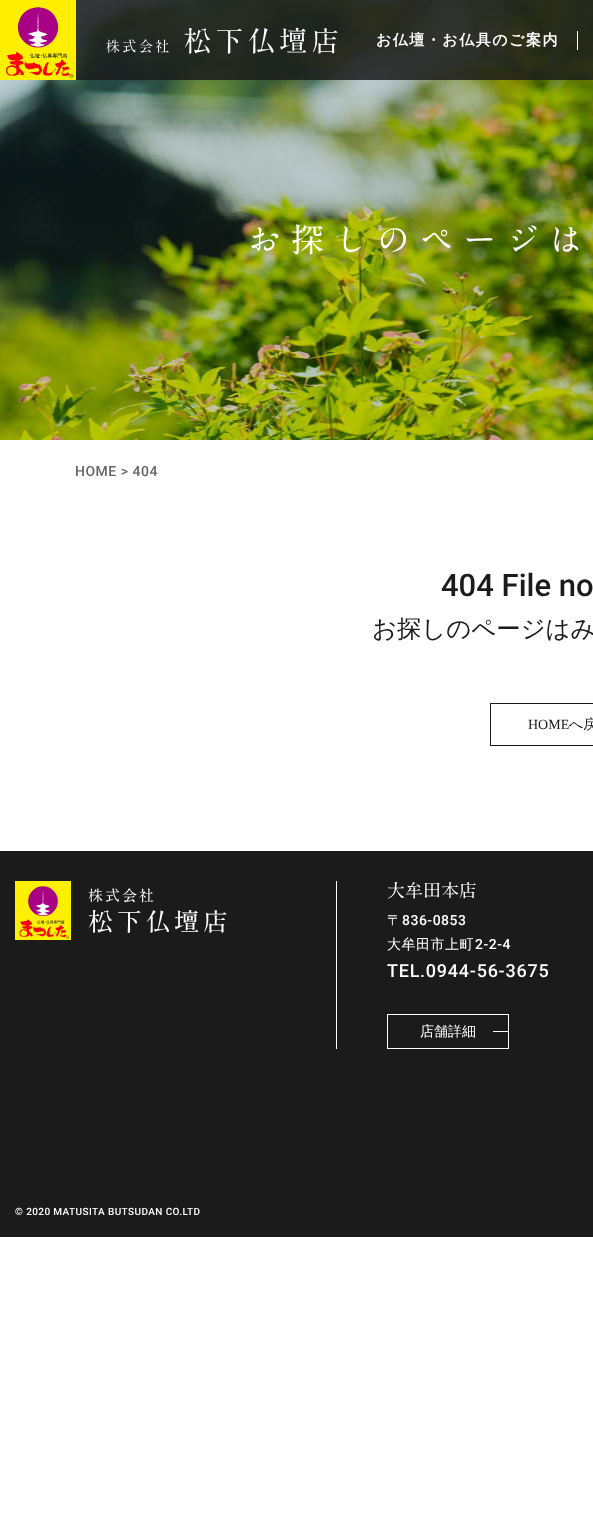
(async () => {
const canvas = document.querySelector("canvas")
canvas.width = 593
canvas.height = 1534
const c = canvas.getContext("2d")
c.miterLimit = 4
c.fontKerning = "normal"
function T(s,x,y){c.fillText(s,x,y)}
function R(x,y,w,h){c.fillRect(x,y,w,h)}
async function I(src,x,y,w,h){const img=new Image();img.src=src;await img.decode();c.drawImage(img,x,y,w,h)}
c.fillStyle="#fff"
R(0,0,593,1534)
await I("3.png",0,0,593,440)
c.fillStyle="#1b1b1bd9"
R(76,0,517,80)
await I("1.png",0,0,76,80)
await I("2.png",106,27,232,27)
c.fillStyle="#fff"
R(577,31,1,19)
c.letterSpacing="1.5px"
c.font="bold 15px WenQuanYi Zen Hei"
T("お仏壇・お仏具のご案内",376,45)
c.letterSpacing="10px"
c.font="33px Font"
T("お探しのページは",248,252)
c.letterSpacing="0.5px"
c.font="500 14px Roboto"
c.fillStyle="#646464"
T("HOME > 404",75,476)
c.letterSpacing="0px"
c.font="500 31px Roboto"
c.fillStyle="#1b1b1b"
T("404 File no",441,596)
c.font="500 24.4px WenQuanYi Zen Hei"
T("お探しのページはみ",372,637)
c.strokeStyle="#1b1b1b"
c.strokeRect(490.5,703.5,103,42)
c.font="14px Liberation Serif"
T("HOME",528,729)
c.font="500 14px WenQuanYi Zen Hei"
T("へ戻",569,729)
R(0,851,593,386)
await I("4.png",15,881,56,59)
c.letterSpacing="2px"
c.font="15px Font"
c.fillStyle="#fff"
T("株式会社",88,901)
c.letterSpacing="3.75px"
c.font="25px Font"
T("松下仏壇店",88,931)
R(336,881,1,168)
c.letterSpacing="0px"
c.font="18px Font"
T("大牟田本店",387,897)
c.letterSpacing="0.5px"
c.font="500 14px WenQuanYi Zen Hei"
T("〒",387,925)
c.font="500 14px Roboto"
T("836-0853",402,925)
c.font="500 14px WenQuanYi Zen Hei"
T("大牟田市上町",387,949)
c.font="500 14px Roboto"
T("2-2-4",475,949)
c.letterSpacing="0.75px"
c.font="500 18px Roboto"
T("TEL.0944-56-3675",387,977)
c.strokeStyle="#fff"
c.strokeRect(387.5,1014.5,121,34)
c.letterSpacing="0px"
c.font="500 14px WenQuanYi Zen Hei"
T("店舗詳細",420,1036)
R(493,1031,15,1)
c.letterSpacing="0.4px"
c.font="500 10px Roboto"
T("© 2020 MATUSITA BUTSUDAN CO.LTD",15,1215)
})()
